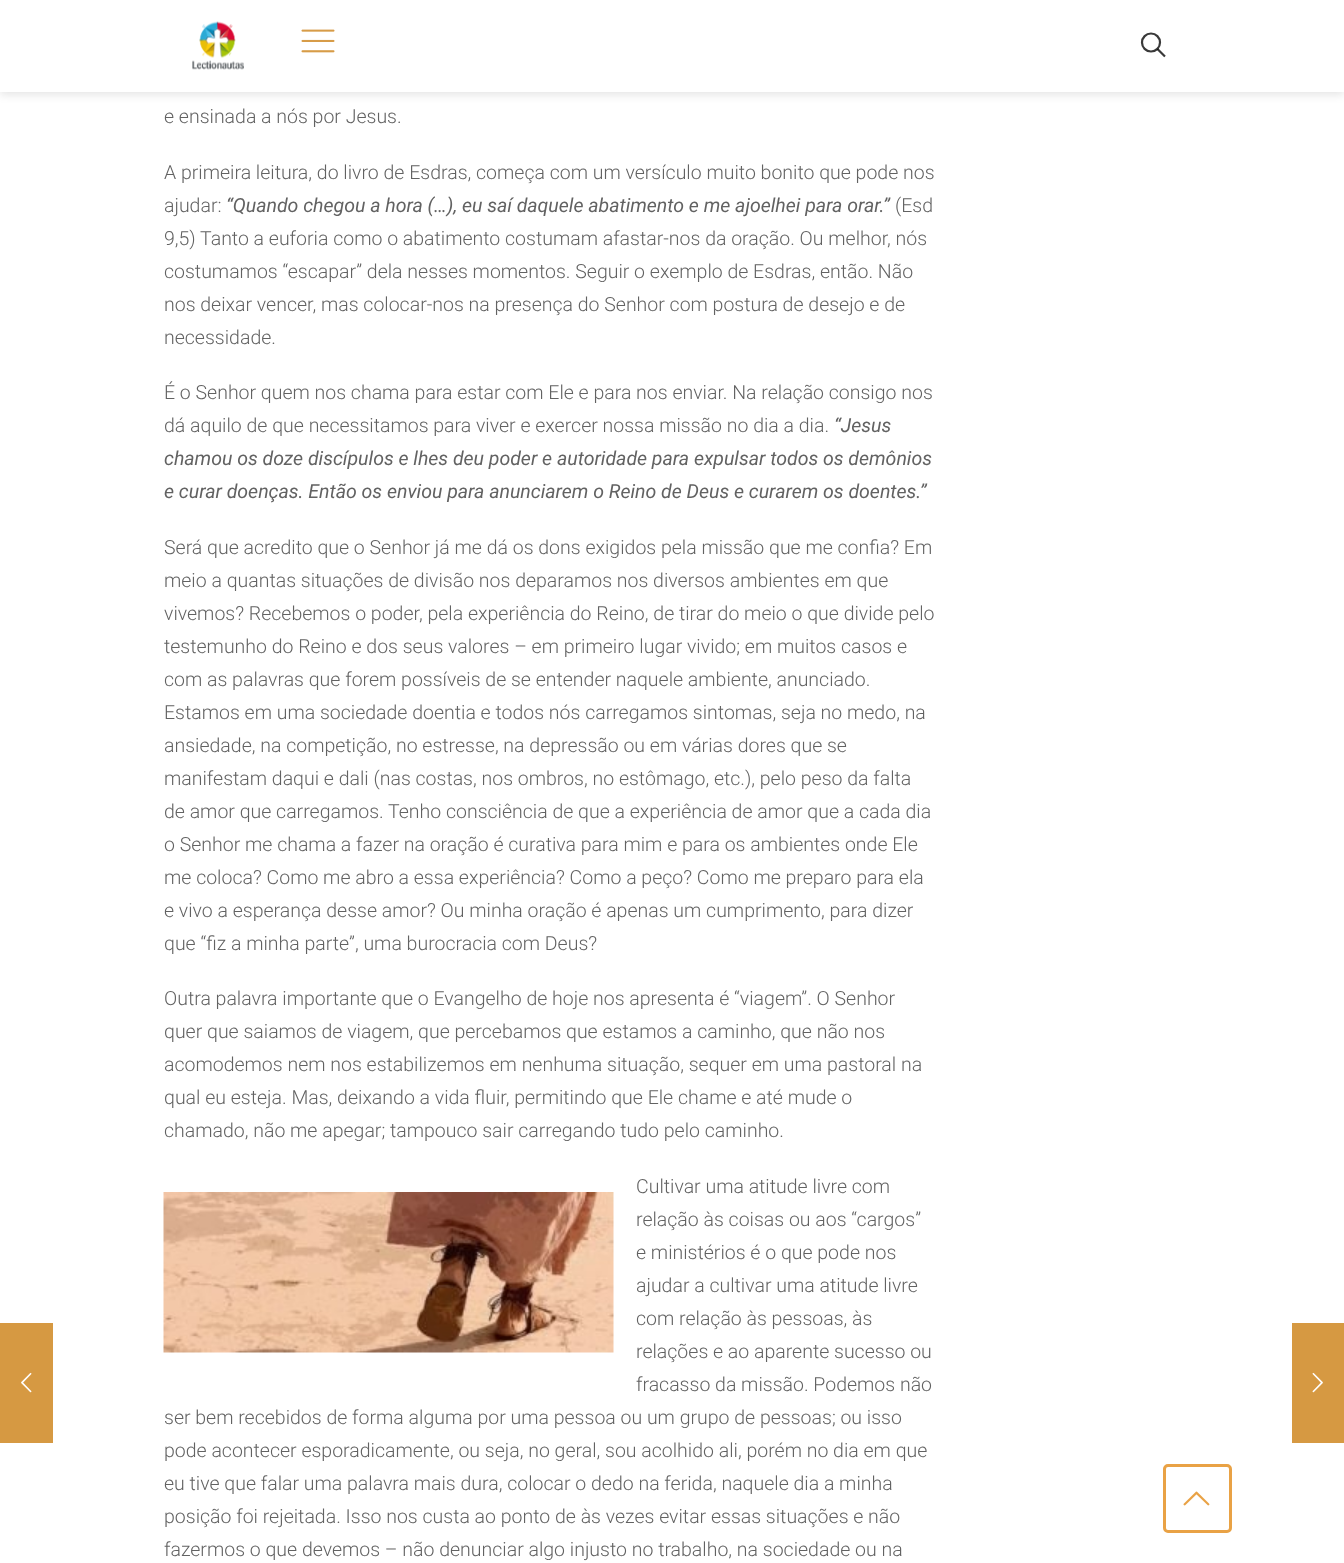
(async () => {
const canvas = document.querySelector("canvas")
canvas.width = 1344
canvas.height = 1563
const c = canvas.getContext("2d")
c.miterLimit = 4
c.fontKerning = "normal"
function T(s,x,y){c.fillText(s,x,y)}
function R(x,y,w,h){c.fillRect(x,y,w,h)}
async function I(src,x,y,w,h){const img=new Image();img.src=src;await img.decode();c.drawImage(img,x,y,w,h)}
let path
c.fillStyle="#fff"
R(0,0,1344,1563)
c.fillStyle="#d69942"
R(0,1323,53,120)
await I("1.png",21,1372,11,21)
c.save()
path = new Path2D("M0 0h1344v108h-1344zm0 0h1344v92h-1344z")
c.clip(path,"evenodd")
c.fillStyle="#0000001a"
c.filter="blur(4px)"
c.beginPath()
c.rect(0,3,1344,92)
c.fill()
c.filter="none"
c.restore()
c.fillStyle="#fffffff7"
R(0,91,1344,1)
await I("2.png",192,21,52,49)
await I("3.png",301,29,34,24)
c.beginPath()
c.arc(1151,42.5,9,0,7)
c.strokeStyle="#393939"
c.lineWidth=2.2
c.stroke()
path = new Path2D("M1157.5 49l7.5 7.5")
c.strokeStyle="#080808cc"
c.stroke(path)
c.font="300 19.5px Roboto"
c.fillStyle="#626262"
T("e ensinada a nós por Jesus.",164,123)
T("A primeira leitura, do livro de Esdras, começa com um versículo muito bonito que pode nos",164,179)
T("ajudar:",164,212)
c.font="italic 19.5px Roboto"
T("“Quando chegou a hora (…), eu saí daquele abatimento e me ajoelhei para orar.”",226,212)
c.font="300 19.5px Roboto"
T("(Esd",895,212)
T("9,5) Tanto a euforia como o abatimento costumam afastar-nos da oração. Ou melhor, nós",164,245)
T("costumamos “escapar” dela nesses momentos. Seguir o exemplo de Esdras, então. Não",164,278)
T("nos deixar vencer, mas colocar-nos na presença do Senhor com postura de desejo e de",164,311)
T("necessidade.",164,344)
T("É o Senhor quem nos chama para estar com Ele e para nos enviar. Na relação consigo nos",164,399)
T("dá aquilo de que necessitamos para viver e exercer nossa missão no dia a dia.",164,432)
c.font="italic 19.5px Roboto"
T("“Jesus",834,432)
T("chamou os doze discípulos e lhes deu poder e autoridade para expulsar todos os demônios",164,465)
T("e curar doenças. Então os enviou para anunciarem o Reino de Deus e curarem os doentes.”",164,498)
c.font="300 19.5px Roboto"
T("Será que acredito que o Senhor já me dá os dons exigidos pela missão que me confia? Em",164,554)
T("meio a quantas situações de divisão nos deparamos nos diversos ambientes em que",164,587)
T("vivemos? Recebemos o poder, pela experiência do Reino, de tirar do meio o que divide pelo",164,620)
T("testemunho do Reino e dos seus valores – em primeiro lugar vivido; em muitos casos e",164,653)
T("com as palavras que forem possíveis de se entender naquele ambiente, anunciado.",164,686)
T("Estamos em uma sociedade doentia e todos nós carregamos sintomas, seja no medo, na",164,719)
T("ansiedade, na competição, no estresse, na depressão ou em várias dores que se",164,752)
T("manifestam daqui e dali (nas costas, nos ombros, no estômago, etc.), pelo peso da falta",164,785)
T("de amor que carregamos. Tenho consciência de que a experiência de amor que a cada dia",164,818)
T("o Senhor me chama a fazer na oração é curativa para mim e para os ambientes onde Ele",164,851)
T("me coloca? Como me abro a essa experiência? Como a peço? Como me preparo para ela",164,884)
T("e vivo a esperança desse amor? Ou minha oração é apenas um cumprimento, para dizer",164,917)
T("que “fiz a minha parte”, uma burocracia com Deus?",164,950)
T("Outra palavra importante que o Evangelho de hoje nos apresenta é “viagem”. O Senhor",164,1005)
T("quer que saiamos de viagem, que percebamos que estamos a caminho, que não nos",164,1038)
T("acomodemos nem nos estabilizemos em nenhuma situação, sequer em uma pastoral na",164,1071)
T("qual eu esteja. Mas, deixando a vida fluir, permitindo que Ele chame e até mude o",164,1104)
T("chamado, não me apegar; tampouco sair carregando tudo pelo caminho.",164,1137)
T("Cultivar uma atitude livre com",636,1193)
await I("4.png",163,1192,451,161)
T("relação às coisas ou aos “cargos”",636,1226)
T("e ministérios é o que pode nos",636,1259)
T("ajudar a cultivar uma atitude livre",636,1292)
T("com relação às pessoas, às",636,1325)
T("relações e ao aparente sucesso ou",636,1358)
T("fracasso da missão. Podemos não",636,1391)
T("ser bem recebidos de forma alguma por uma pessoa ou um grupo de pessoas; ou isso",164,1424)
T("pode acontecer esporadicamente, ou seja, no geral, sou acolhido ali, porém no dia em que",164,1457)
T("eu tive que falar uma palavra mais dura, colocar o dedo na ferida, naquele dia a minha",164,1490)
T("posição foi rejeitada. Isso nos custa ao ponto de às vezes evitar essas situações e não",164,1523)
T("fazermos o que devemos – não denunciar algo injusto no trabalho, na sociedade ou na",164,1556)
c.fillStyle="#d69942"
R(1292,1323,52,120)
await I("5.png",1312,1372,11,21)
c.beginPath()
c.roundRect(1164.5,1465.5,66,66,3.5)
c.strokeStyle="#e9a245"
c.lineWidth=3
c.stroke()
await I("6.png",1183,1491,27,15)
})()
